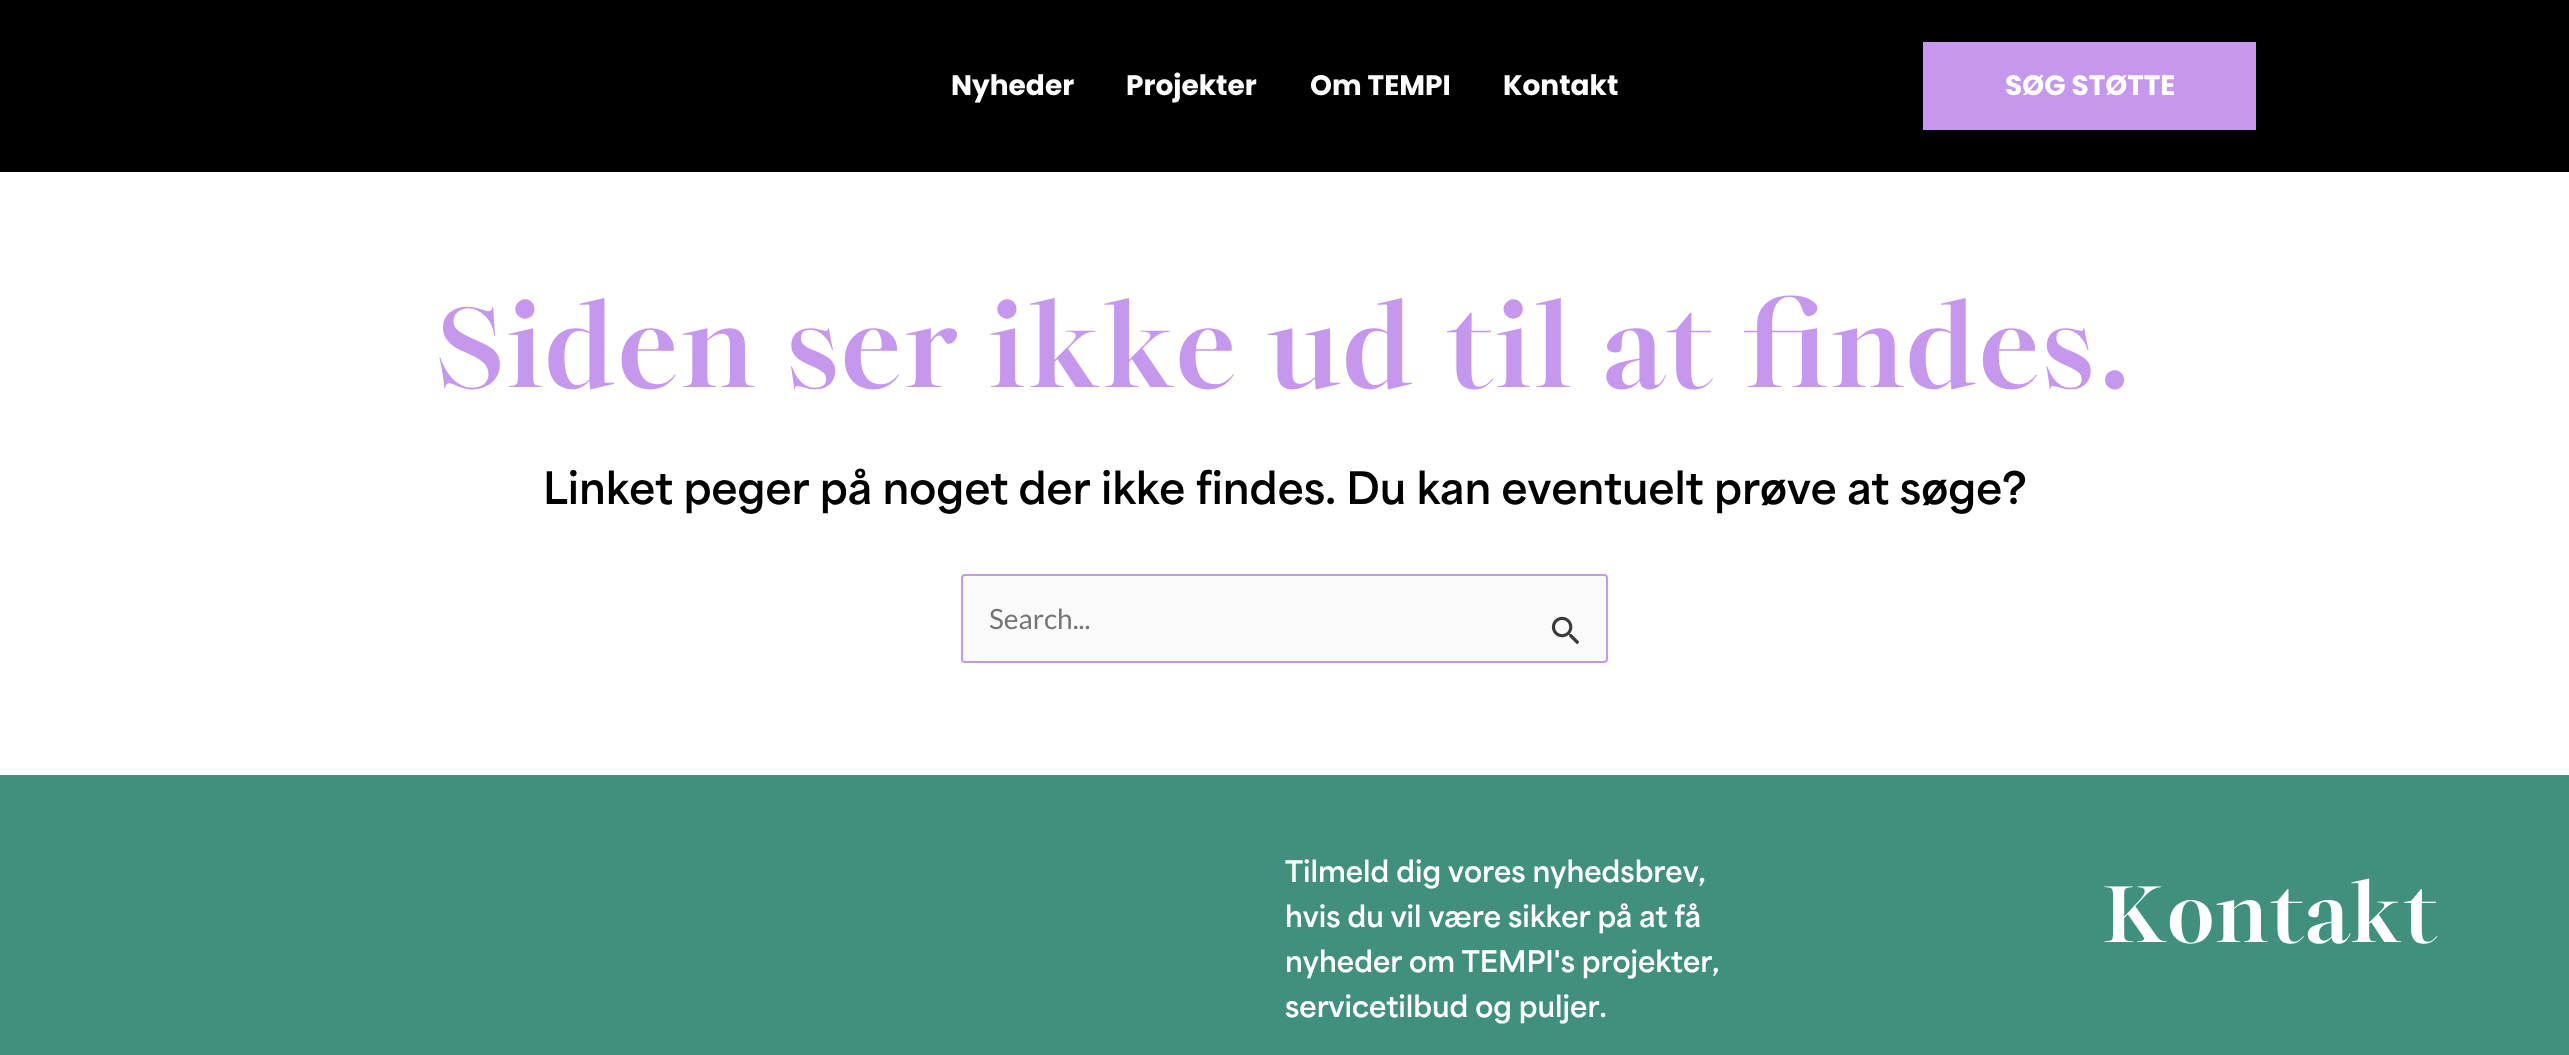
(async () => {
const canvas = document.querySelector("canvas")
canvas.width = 2569
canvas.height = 1055
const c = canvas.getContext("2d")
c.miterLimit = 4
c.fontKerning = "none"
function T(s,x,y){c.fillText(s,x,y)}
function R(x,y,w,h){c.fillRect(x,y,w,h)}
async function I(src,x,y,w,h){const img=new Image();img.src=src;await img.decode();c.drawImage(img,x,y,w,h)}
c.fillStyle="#fff"
R(0,0,2569,1055)
c.fillStyle="#000"
R(0,0,2569,172)
c.font="bold 28px Poppins"
c.fillStyle="#fff"
T("Nyheder",951,95)
T("Projekter",1126,95)
T("Om TEMPI",1310,95)
T("Kontakt",1503,95)
c.fillStyle="#c597ed"
R(1923,42,333,88)
c.fillStyle="#fff"
T("SØG STØTTE",2005,95)
c.font="bold 122.5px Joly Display"
c.fillStyle="#c597ed"
T("Siden ser ikke ud til at findes.",436,387)
c.font="bold 42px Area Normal"
c.fillStyle="#000"
T("Linket peger på noget der ikke findes. Du kan eventuelt",543,504)
T("prøve at søge?",1714,504)
c.fillStyle="#fafafa"
c.beginPath()
c.roundRect(962,575,645,87,3)
c.fill()
c.strokeStyle="#c597ed"
c.lineWidth=2
c.stroke()
c.font="28px Lato"
c.fillStyle="#757575"
T("Search...",989,629)
await I("1.png",1551,616,28,29)
c.fillStyle="#41907e"
R(0,775,2569,280)
c.font="bold 28px Area Normal"
c.fillStyle="#fff"
T("Tilmeld dig vores nyhedsbrev,",1285,882)
T("hvis du vil være sikker på at få",1285,927)
T("nyheder om TEMPI's projekter,",1285,972)
T("servicetilbud og puljer.",1285,1017)
c.font="bold 87.5px Joly Display"
T("Kontakt",2102,942)
})()
